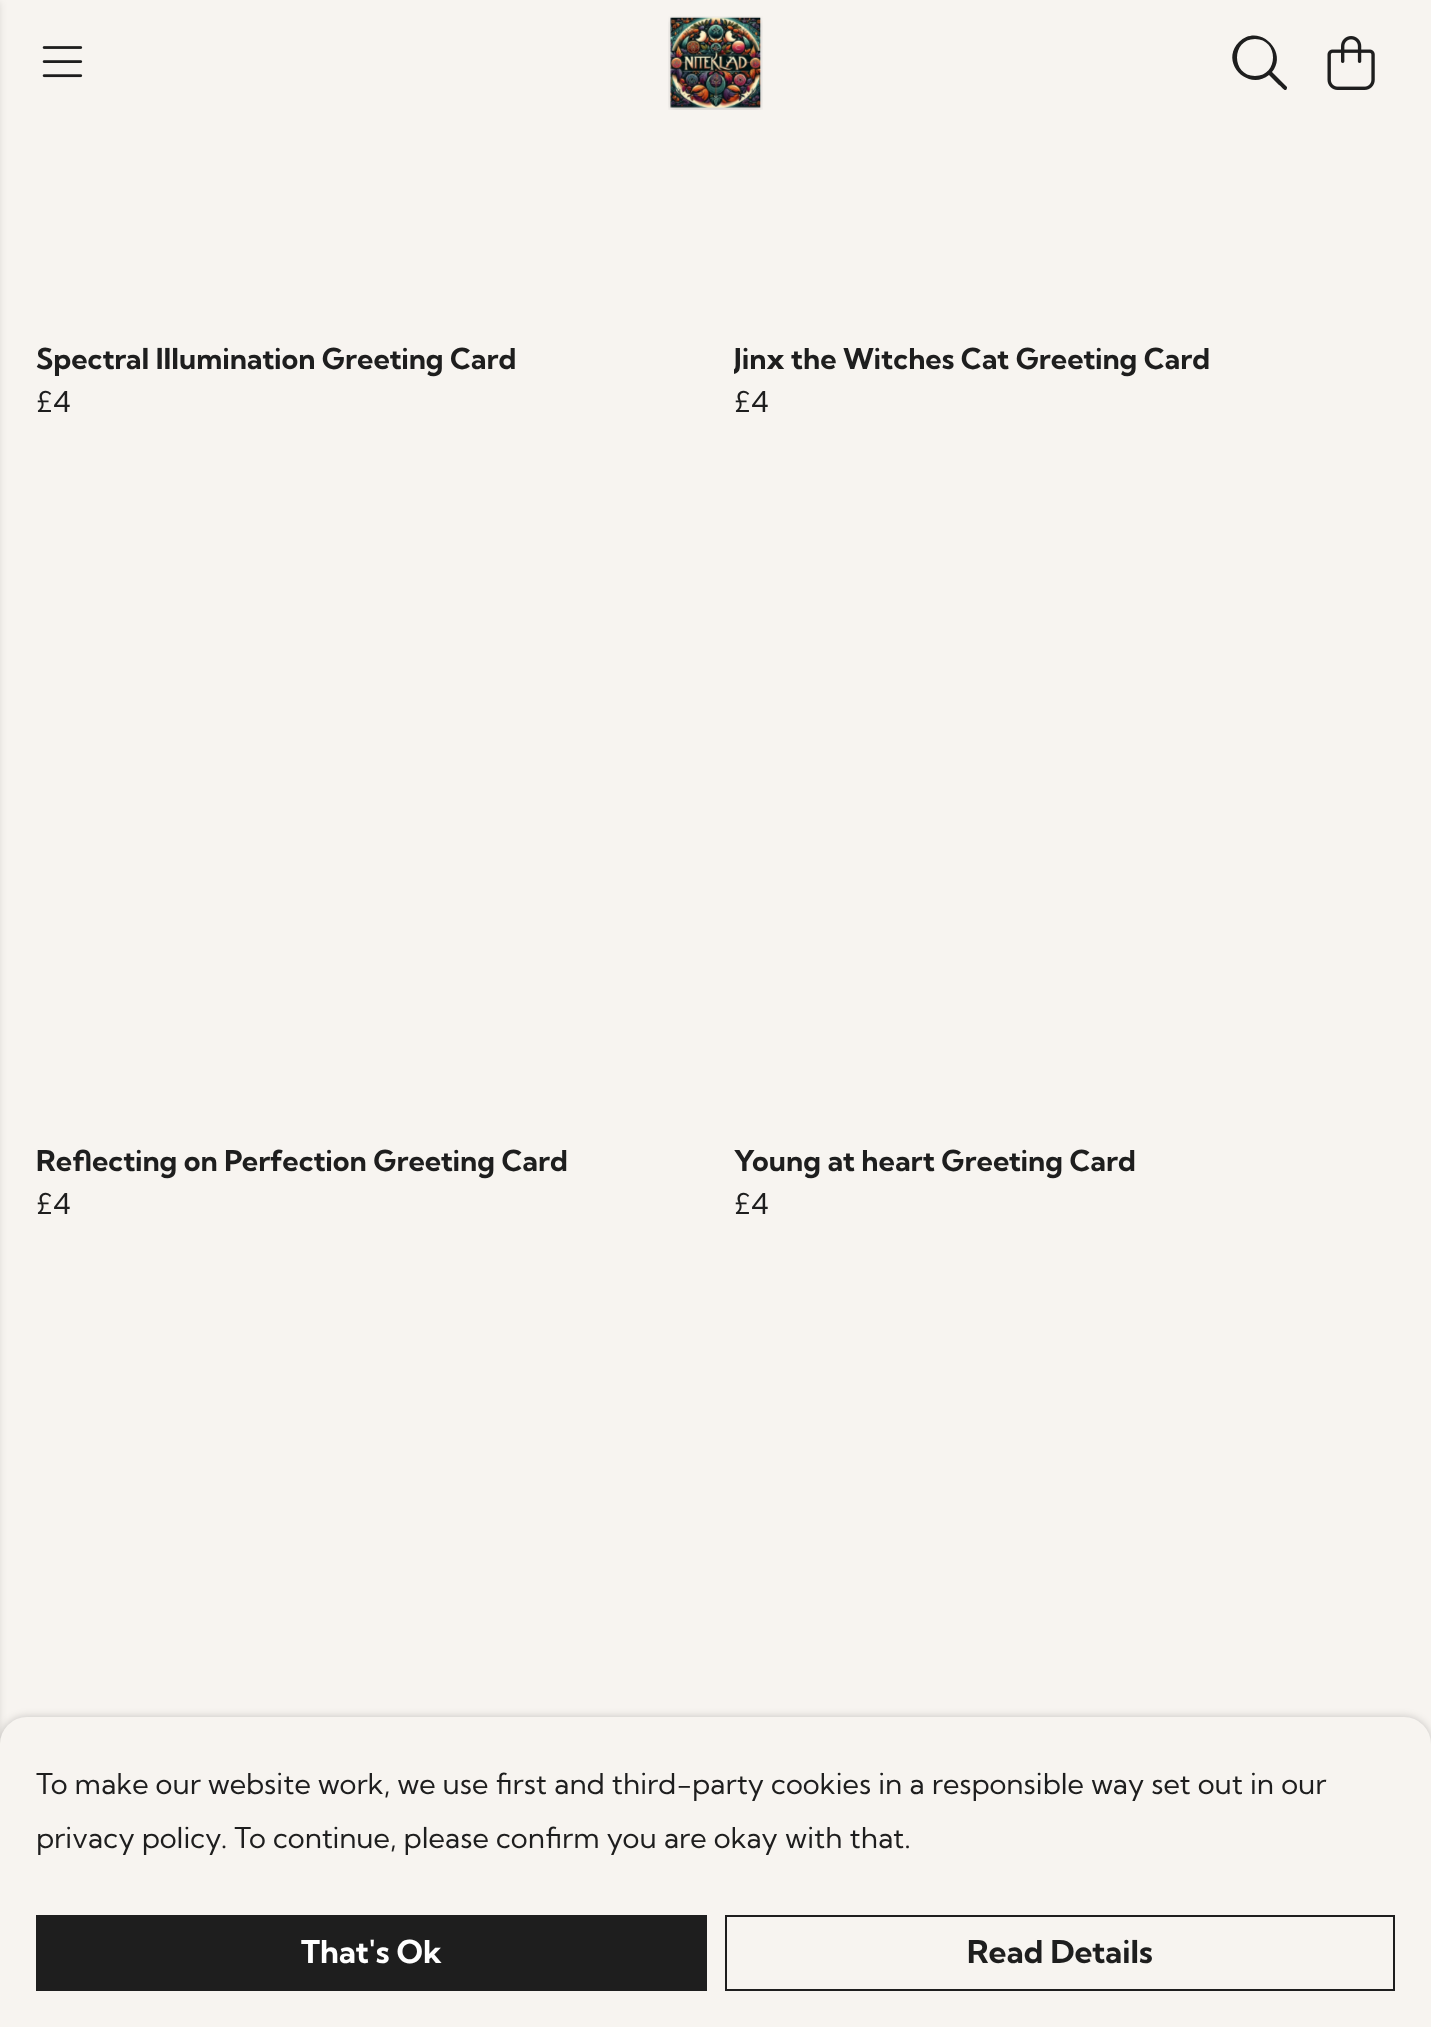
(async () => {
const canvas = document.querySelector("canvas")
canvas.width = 1431
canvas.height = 2027
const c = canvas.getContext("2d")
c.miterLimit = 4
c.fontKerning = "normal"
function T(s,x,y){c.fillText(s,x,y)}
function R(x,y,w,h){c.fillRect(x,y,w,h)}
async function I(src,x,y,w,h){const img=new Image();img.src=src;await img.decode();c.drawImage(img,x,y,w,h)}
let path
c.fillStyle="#f7f4f0"
R(0,0,1431,2027)
c.fillStyle="#0000001a"
c.filter="blur(3.5px)"
c.beginPath()
c.rect(-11,2,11,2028)
c.fill()
c.filter="none"
await I("1.png",42,46,41,32)
await I("2.png",668,16,95,94)
c.fillStyle="#1e1e1e"
path = new Path2D("M1287 87l-15-15c17-20-13-50-33-30c-20 20 9 50 30 33l10 10c1 0 5 6 7 5c1-1 1-2 1-3zm-32-11c-24 0-24-37 0-37c24 0 24 37 0 37z")
c.fill(path)
await I("3.png",1327,36,48,54)
c.font="bold 28.8px Kumbh Sans"
T("Spectral Illumination Greeting Card",36,369)
c.font="28.8px Kumbh Sans"
T("£4",36,412)
c.save()
c.beginPath()
c.rect(734,0,661,432)
c.clip()
c.font="bold 28.8px Kumbh Sans"
T("Jinx the Witches Cat Greeting Card",734,369)
c.restore()
T("£4",734,412)
c.font="bold 28.8px Kumbh Sans"
T("Reflecting on Perfection Greeting Card",36,1171)
c.font="28.8px Kumbh Sans"
T("£4",36,1214)
c.font="bold 28.8px Kumbh Sans"
T("Young at heart Greeting Card",734,1171)
c.font="28.8px Kumbh Sans"
T("£4",734,1214)
c.fillStyle="#00000033"
c.filter="blur(4.5px)"
c.beginPath()
c.roundRect(0,1717,1431,310,27)
c.fill()
c.filter="none"
c.fillStyle="#f7f4f0"
c.beginPath()
c.roundRect(0,1717,1431,310,[27,27,0,0])
c.fill()
c.fillStyle="#1e1e1e"
T("To make our website work, we use first and third-party cookies in a responsible way set out in our",36,1794)
T("privacy policy. To continue, please confirm you are okay with that.",36,1848)
R(36,1915,671,76)
c.font="bold 31.5px Kumbh Sans"
c.fillStyle="#fff"
T("That's Ok",301,1963)
c.strokeStyle="#1e1e1e"
c.lineWidth=2
c.strokeRect(726,1916,668,74)
c.fillStyle="#1e1e1e"
T("Read Details",967,1963)
})()
